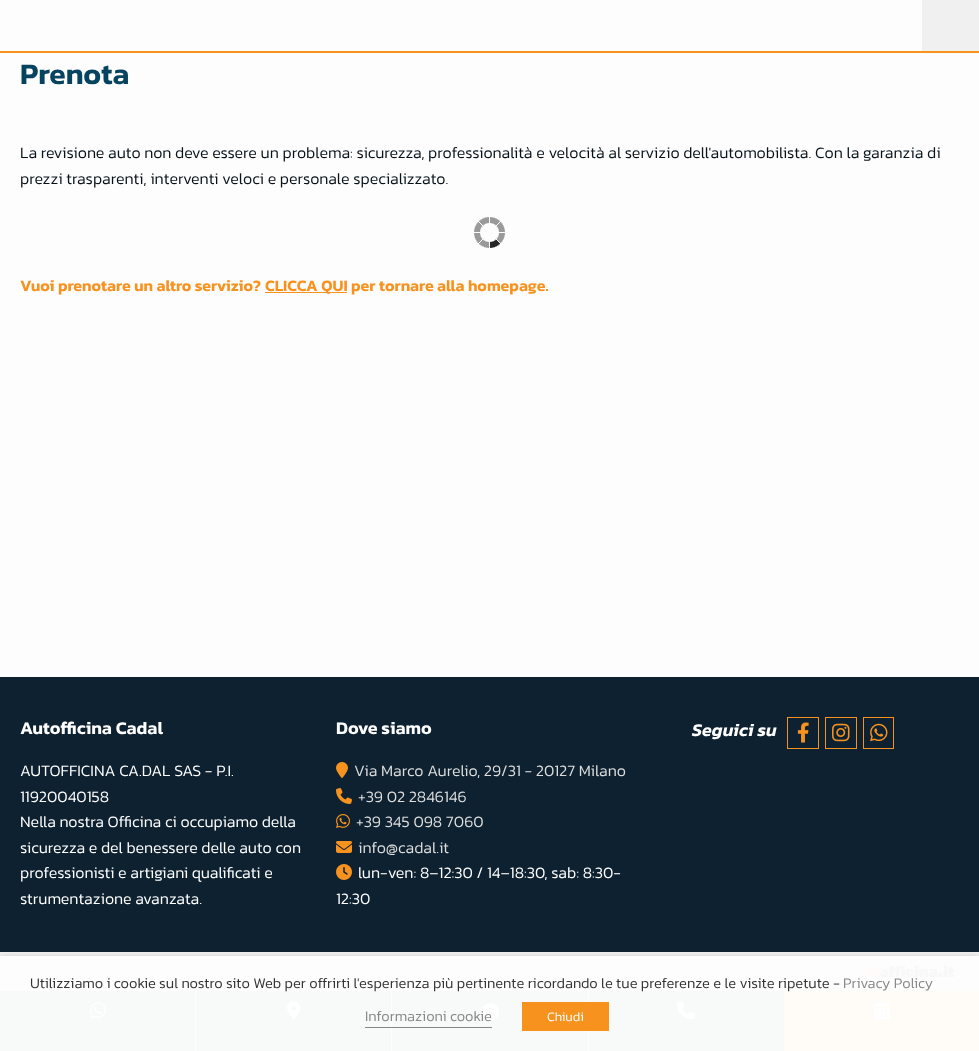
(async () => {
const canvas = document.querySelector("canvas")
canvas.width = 979
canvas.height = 1051
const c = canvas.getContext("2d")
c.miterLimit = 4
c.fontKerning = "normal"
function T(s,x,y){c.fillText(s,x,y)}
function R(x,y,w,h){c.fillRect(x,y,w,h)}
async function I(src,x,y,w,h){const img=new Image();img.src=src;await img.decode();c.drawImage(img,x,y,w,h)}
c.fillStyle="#fdfdfe"
R(0,0,979,1051)
c.fillStyle="#f7921e"
R(0,51,979,2)
c.fillStyle="#f0f0f1"
R(922,0,57,51)
c.font="600 30px Kanit"
c.fillStyle="#06435f"
T("Prenota",20,84)
c.font="300 16px Kanit"
c.fillStyle="#071219"
T("La revisione auto non deve essere un problema: sicurezza, professionalità e velocità al servizio dell'automobilista. Con la garanzia di",20,158)
T("prezzi trasparenti, interventi veloci e personale specializzato.",20,184)
await I("1.png",474,217,31,31)
c.font="600 16px Kanit"
c.fillStyle="#f7921e"
T("Vuoi prenotare un altro servizio?",20,291)
R(265,292,82,1)
T("CLICCA QUI per tornare alla homepage.",265,291)
c.fillStyle="#0d2130"
R(0,677,979,275)
c.font="600 18px Kanit"
c.fillStyle="#fff"
T("Autofficina Cadal",20,734)
c.font="300 16px Kanit"
T("AUTOFFICINA CA.DAL SAS - P.I.",20,776)
T("11920040158",20,802)
T("Nella nostra Officina ci occupiamo della",20,827)
T("sicurezza e del benessere delle auto con",20,853)
T("professionisti e artigiani qualificati e",20,878)
T("strumentazione avanzata.",20,904)
c.font="600 18px Kanit"
T("Dove siamo",336,734)
await I("2.png",336,762,12,16)
c.font="300 16px Kanit"
c.fillStyle="#ddd"
T("Via Marco Aurelio, 29/31 - 20127 Milano",354,776)
await I("3.png",336,788,16,16)
T("+39 02 2846146",358,802)
await I("4.png",336,814,14,14)
T("+39 345 098 7060",356,827)
await I("5.png",336,841,16,12)
T("info@cadal.it",358,853)
await I("6.png",336,864,16,16)
c.fillStyle="#fff"
T("lun-ven: 8–12:30 / 14–18:30, sab: 8:30-",358,878)
T("12:30",336,904)
c.font="italic 600 18px Kanit"
T("Seguici su",692,736)
c.strokeStyle="#f7921e"
c.strokeRect(787.5,717.5,31,31)
await I("7.png",797,722,12,21)
c.strokeRect(825.5,717.5,31,31)
await I("8.png",832,723,18,19)
c.strokeRect(863.5,717.5,30,31)
await I("9.png",870,723,18,19)
c.fillStyle="#f0f0f1"
R(0,952,979,4)
await I("10.png",863,963,92,18)
c.fillStyle="#f8f9f9"
R(0,991,195,60)
await I("11.png",90,1002,16,17)
R(196,991,195,60)
await I("12.png",287,1001,14,19)
R(392,991,196,60)
await I("13.png",481,1003,18,19)
R(589,991,195,60)
await I("14.png",677,1001,18,19)
c.fillStyle="#fffcf8"
R(784,991,195,60)
await I("15.png",874,1001,16,19)
c.save()
c.beginPath()
c.rect(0,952,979,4)
c.clip()
c.fillStyle="#00000080"
c.filter="blur(5px)"
c.beginPath()
c.rect(0,961,979,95)
c.fill()
c.filter="none"
c.restore()
c.font="300 14.67px Kanit"
c.fillStyle="#333"
T("Utilizziamo i cookie sul nostro sito Web per offrirti l'esperienza più pertinente ricordando le tue preferenze e le visite ripetute -",30,988)
c.fillStyle="#898888"
T("Privacy Policy",843,988)
T("Informazioni cookie",365,1021)
R(365,1027,127,1)
c.fillStyle="#f7921e"
R(522,1002,87,29)
c.font="300 13px Kanit"
c.fillStyle="#fff"
T("Chiudi",547,1021)
})()
